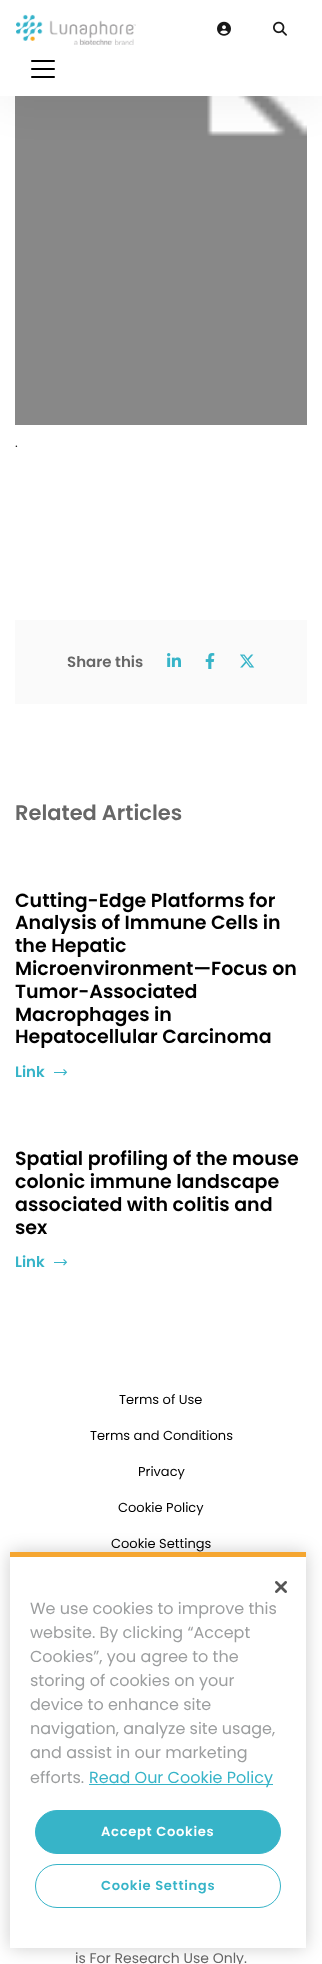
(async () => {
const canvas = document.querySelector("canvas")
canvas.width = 322
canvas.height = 1964
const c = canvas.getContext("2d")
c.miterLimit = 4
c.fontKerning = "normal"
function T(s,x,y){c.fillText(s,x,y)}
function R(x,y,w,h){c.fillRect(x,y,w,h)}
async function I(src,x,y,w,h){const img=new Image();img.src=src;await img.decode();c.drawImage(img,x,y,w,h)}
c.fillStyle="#fff"
R(0,0,322,1964)
await I("5.png",15,96,292,329)
c.fillStyle="#0000000d"
c.filter="blur(20px)"
c.beginPath()
c.rect(0,10,322,96)
c.fill()
c.filter="none"
c.fillStyle="#fff"
R(0,0,322,96)
await I("1.png",16,14,120,31)
await I("2.png",217,21,14,15)
await I("3.png",273,21,14,15)
await I("4.png",31,60,24,18)
c.font="13px Poppins"
c.fillStyle="#191919"
T(".",15,447)
c.fillStyle="#fafafa"
R(15,620,292,84)
c.font="600 15px Poppins"
c.fillStyle="#676767"
T("Share this",67,667)
await I("6.png",167,653,14,14)
await I("7.png",205,653,10,16)
await I("8.png",240,654,15,14)
c.font="600 21px Poppins"
T("Related Articles",15,820)
c.font="600 19px Poppins"
c.fillStyle="#000"
T("Cutting-Edge Platforms for",15,907)
T("Analysis of Immune Cells in",15,929)
T("the Hepatic",15,952)
T("Microenvironment—Focus on",15,975)
T("Tumor-Associated",15,998)
T("Macrophages in",15,1021)
T("Hepatocellular Carcinoma",15,1043)
c.font="600 15px Poppins"
c.fillStyle="#37b4c8"
T("Link",15,1077)
await I("9.png",54,1069,14,7)
c.font="600 19px Poppins"
c.fillStyle="#000"
T("Spatial profiling of the mouse",15,1165)
T("colonic immune landscape",15,1188)
T("associated with colitis and",15,1211)
T("sex",15,1234)
c.font="600 15px Poppins"
c.fillStyle="#37b4c8"
T("Link",15,1267)
await I("9.png",54,1259,14,7)
c.font="13px Poppins"
c.fillStyle="#000"
T("Terms of Use",119,1404)
T("Terms and Conditions",90,1440)
T("Privacy",138,1476)
T("Cookie Policy",118,1512)
T("Cookie Settings",111,1548)
c.font="14px Poppins"
c.fillStyle="#676767"
T("is For Research Use Only.",75,1963)
c.fillStyle="#00000033"
c.filter="blur(9px)"
c.beginPath()
c.rect(10,1552,296,396)
c.fill()
c.filter="none"
c.fillStyle="#fff"
R(10,1557,296,391)
c.fillStyle="#f5a631"
R(10,1552,296,5)
await I("10.png",275,1581,12,12)
c.font="16px Poppins"
c.fillStyle="#9c9e9f"
T("We use cookies to improve this",30,1614)
T("website. By clicking “Accept",30,1638)
T("Cookies”, you agree to the",30,1662)
T("storing of cookies on your",30,1686)
T("device to enhance site",30,1710)
T("navigation, analyze site usage,",30,1734)
T("and assist in our marketing",30,1758)
T("efforts.",30,1783)
c.fillStyle="#37b4c8"
R(89,1784,184,1)
T("Read Our Cookie Policy",89,1783)
c.beginPath()
c.roundRect(35.5,1810.5,245,43,21.5)
c.fill()
c.strokeStyle="#37b4c8"
c.stroke()
c.letterSpacing="0.7px"
c.font="600 13.1px Poppins"
c.fillStyle="#fff"
T("Accept Cookies",101,1836)
c.beginPath()
c.roundRect(35.5,1864.5,245,43,21.5)
c.stroke()
c.fillStyle="#37b4c8"
T("Cookie Settings",101,1890)
})()
